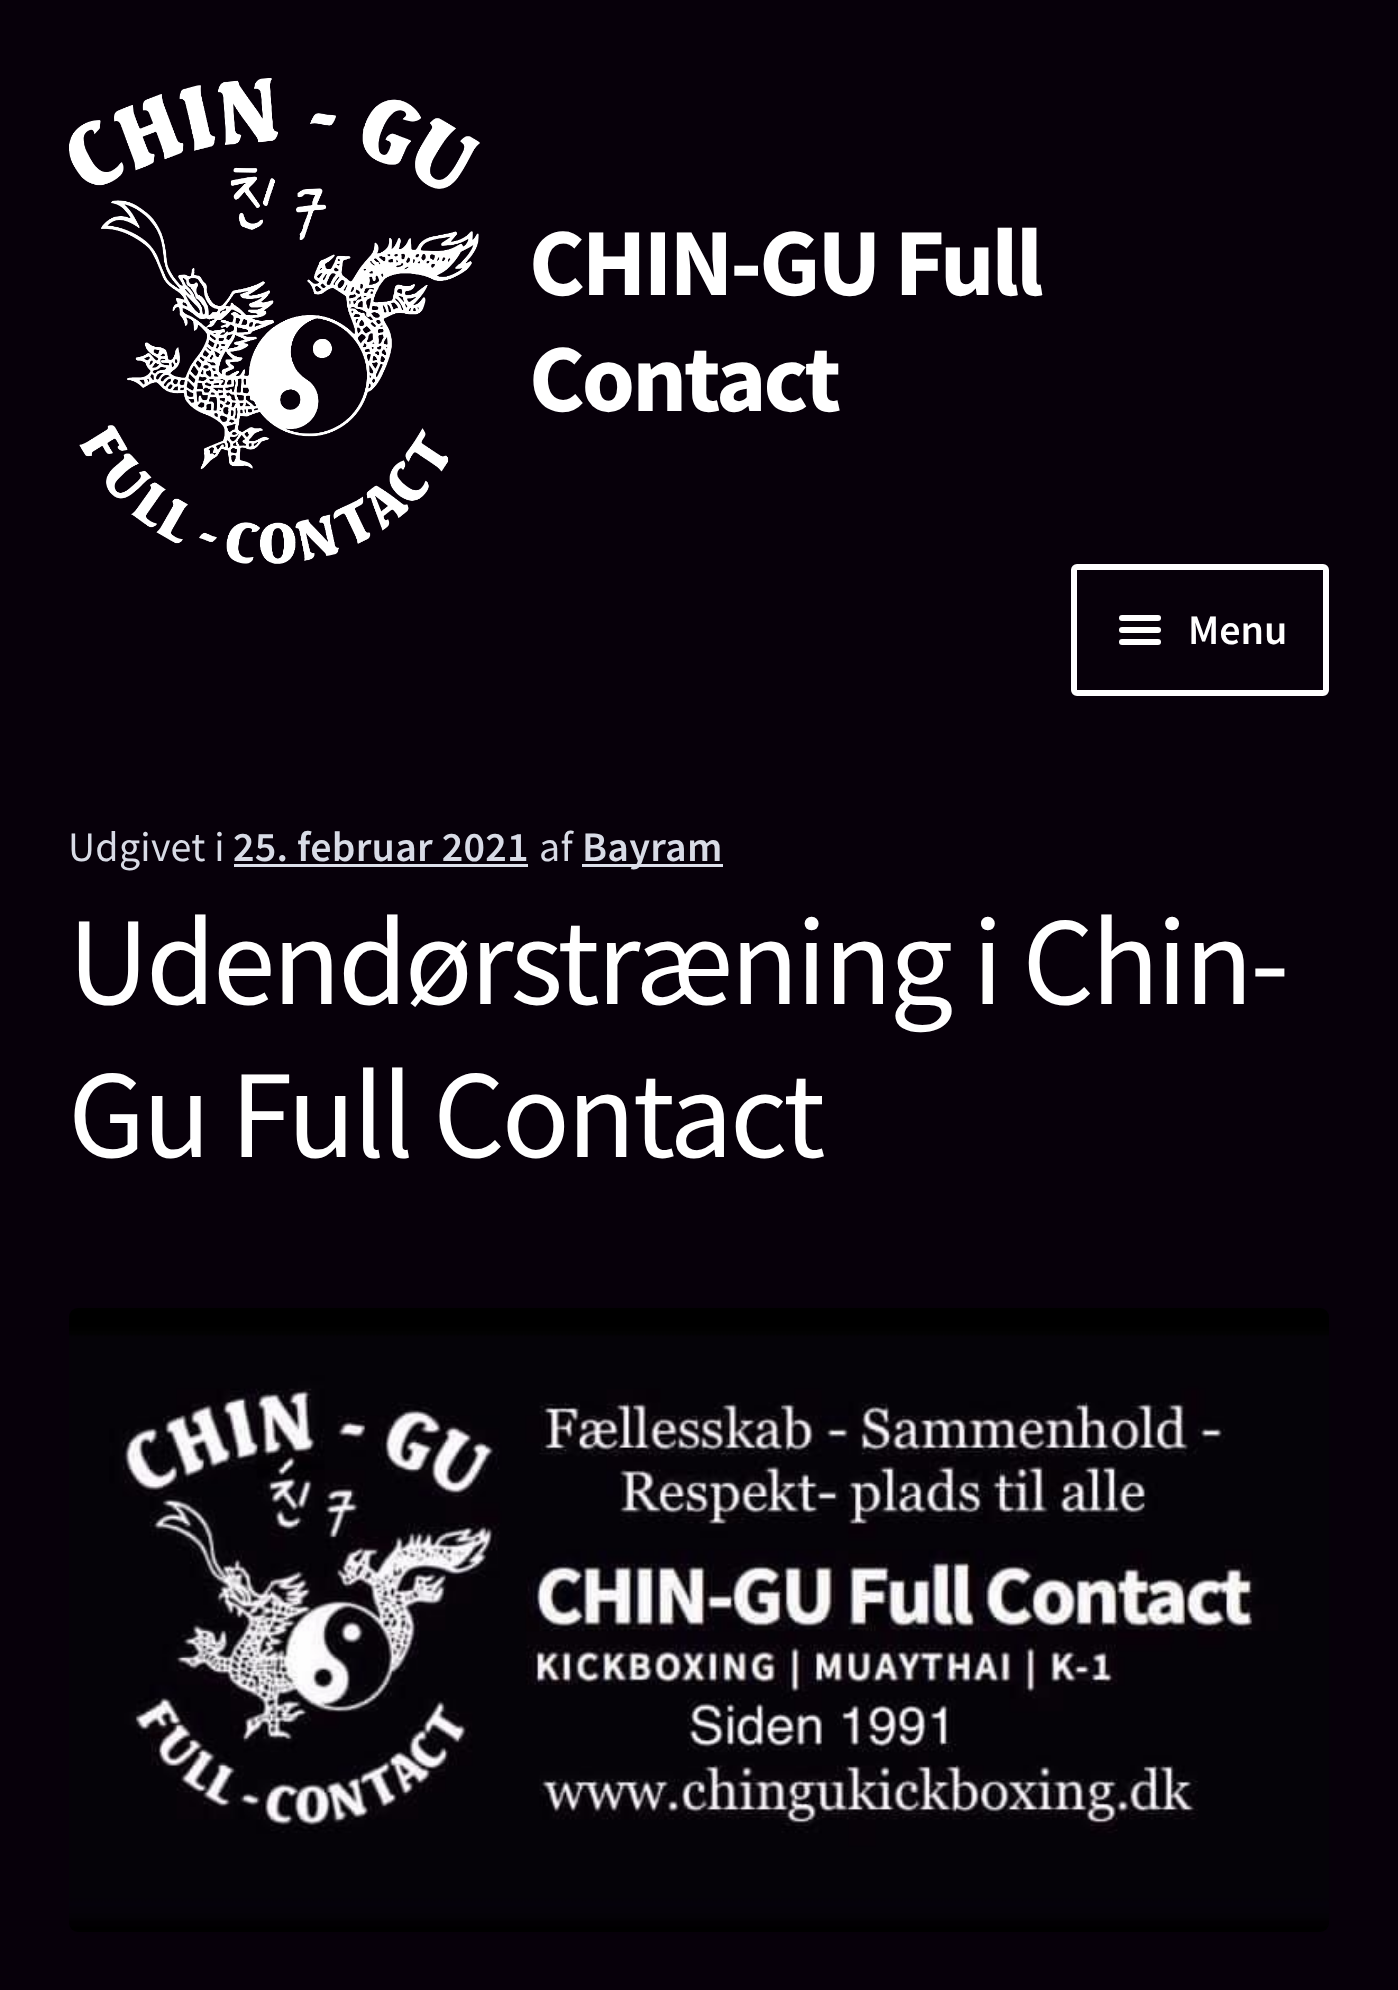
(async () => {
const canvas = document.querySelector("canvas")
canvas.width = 1398
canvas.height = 1990
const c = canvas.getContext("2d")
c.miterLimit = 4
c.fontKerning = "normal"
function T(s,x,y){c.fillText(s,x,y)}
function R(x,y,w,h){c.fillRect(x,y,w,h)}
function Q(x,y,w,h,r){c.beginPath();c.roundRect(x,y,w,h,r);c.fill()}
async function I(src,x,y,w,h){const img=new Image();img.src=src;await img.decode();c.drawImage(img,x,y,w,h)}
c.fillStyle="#07000a"
R(0,0,1398,1990)
await I("1.png",69,78,411,486)
c.letterSpacing="-3px"
c.font="bold 96px Source Sans Pro"
c.fillStyle="#fff"
T("CHIN-GU Full",529,295)
T("Contact",529,411)
c.beginPath()
c.roundRect(1074,567,252,126,3)
c.strokeStyle="#fff"
c.lineWidth=6
c.stroke()
Q(1119,615,42,6,3)
Q(1119,627,42,6,3)
c.letterSpacing="0px"
c.font="600 42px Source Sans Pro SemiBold"
T("Menu",1188,644)
Q(1119,639,42,6,3)
c.letterSpacing="0.25px"
c.font="42px Source Sans Pro"
c.fillStyle="#d8dbe6"
T("Udgivet i",68,861)
c.font="600 42px Source Sans Pro SemiBold"
T("25. februar 2021",233,861)
c.fillStyle="#dde0eb"
R(234,864,294,3)
c.font="42px Source Sans Pro"
c.fillStyle="#d8dbe6"
T("af",539,861)
c.fillStyle="#dde0eb"
R(582,864,141,3)
c.font="600 42px Source Sans Pro SemiBold"
c.fillStyle="#d8dbe6"
T("Bayram",582,861)
c.letterSpacing="-3px"
c.font="125.75px Source Sans Pro"
c.fillStyle="#fff"
T("Udendørstræning i Chin-",68,1004)
T("Gu Full Contact",68,1157)
await I("2.png",69,1308,1260,624)
})()
